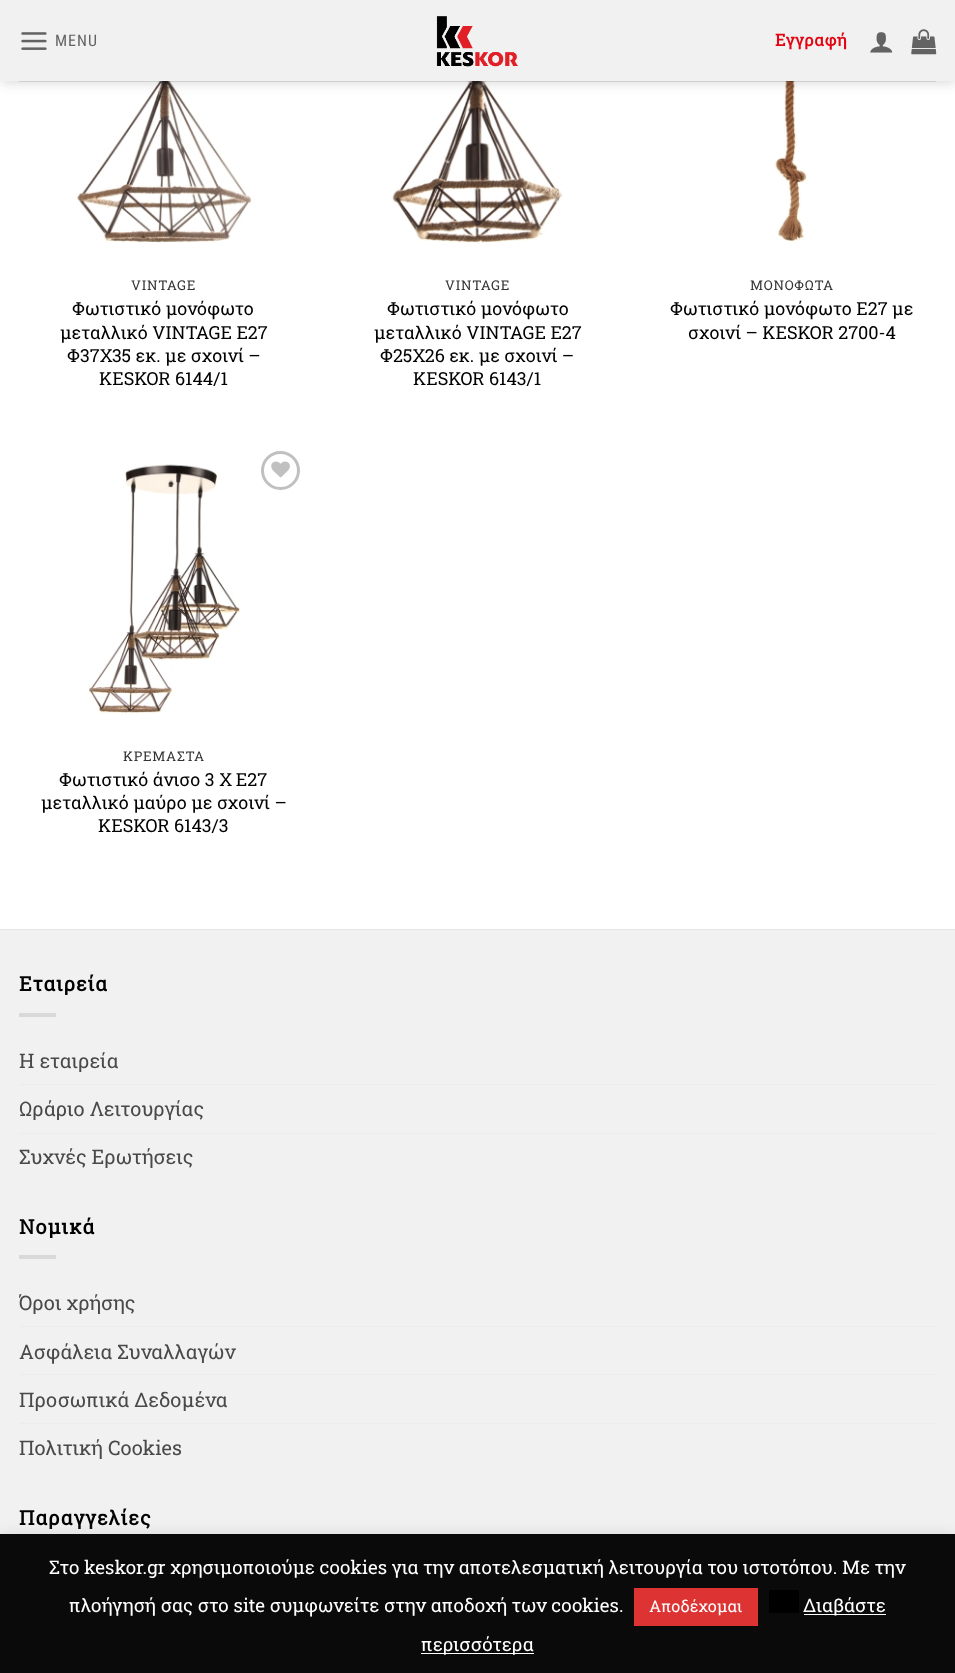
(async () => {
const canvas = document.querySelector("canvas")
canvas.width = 955
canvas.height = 1673
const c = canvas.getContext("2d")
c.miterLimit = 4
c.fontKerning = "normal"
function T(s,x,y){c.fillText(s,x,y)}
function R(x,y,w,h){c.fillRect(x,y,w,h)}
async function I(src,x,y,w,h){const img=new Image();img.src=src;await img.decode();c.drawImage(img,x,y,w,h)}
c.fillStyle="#fff"
R(0,0,955,1673)
await I("5.png",76,81,176,162)
await I("6.png",392,81,171,162)
await I("7.png",774,81,34,162)
c.fillStyle="#00000026"
c.filter="blur(6px)"
c.beginPath()
c.rect(1,1,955,82)
c.fill()
c.filter="none"
c.fillStyle="#f1f1f1"
R(0,0,955,81)
await I("1.png",21,32,26,18)
c.letterSpacing="1px"
c.font="16px Roboto Condensed"
c.fillStyle="#636363"
T("MENU",55,46)
await I("2.png",436,16,82,51)
c.letterSpacing="0.5px"
c.font="bold 16.5px Roboto Slab"
c.fillStyle="#e30612"
T("Εγγραφή",775,46)
await I("3.png",870,32,23,21)
await I("4.png",911,29,26,26)
c.fillStyle="#0000001a"
R(19,81,917,1)
c.letterSpacing="0.75px"
c.font="13.5px Roboto Slab"
c.fillStyle="#333"
T("VINTAGE",131,290)
c.letterSpacing="0px"
c.font="18px Roboto Slab"
c.fillStyle="#000"
T("Φωτιστικό μονόφωτο",72,315)
T("μεταλλικό VINTAGE Ε27",60,339)
T("Φ37Χ35 εκ. με σχοινί –",67,362)
T("KESKOR 6144/1",99,385)
c.letterSpacing="0.75px"
c.font="13.5px Roboto Slab"
c.fillStyle="#333"
T("VINTAGE",445,290)
c.letterSpacing="0px"
c.font="18px Roboto Slab"
c.fillStyle="#000"
T("Φωτιστικό μονόφωτο",387,315)
T("μεταλλικό VINTAGE Ε27",374,339)
T("Φ25Χ26 εκ. με σχοινί –",380,362)
T("KESKOR 6143/1",413,385)
c.letterSpacing="0.75px"
c.font="13.5px Roboto Slab"
c.fillStyle="#333"
T("ΜΟΝΟΦΩΤΑ",750,290)
c.letterSpacing="0px"
c.font="18px Roboto Slab"
c.fillStyle="#000"
T("Φωτιστικό μονόφωτο Ε27 με",670,315)
T("σχοινί – KESKOR 2700-4",688,339)
await I("8.png",88,464,152,250)
c.beginPath()
c.arc(280.5,470.5,18,0,7)
c.strokeStyle="#c0c0c0"
c.lineWidth=3
c.stroke()
await I("9.png",271,461,19,17)
c.letterSpacing="0.75px"
c.font="13.5px Roboto Slab"
c.fillStyle="#333"
T("ΚΡΕΜΑΣΤΑ",123,761)
c.letterSpacing="0px"
c.font="18px Roboto Slab"
c.fillStyle="#000"
T("Φωτιστικό άνισο 3 Χ Ε27",59,786)
T("μεταλλικό μαύρο με σχοινί –",41,809)
T("KESKOR 6143/3",98,832)
c.fillStyle="#f1f1f1"
R(0,930,955,604)
c.fillStyle="#e5e5e5"
R(0,929,955,1)
c.letterSpacing="1px"
c.font="bold 20px Roboto Slab"
c.fillStyle="#000"
T("Εταιρεία",19,991)
c.fillStyle="#d9d9d9"
R(19,1013,37,4)
c.letterSpacing="0px"
c.font="20px Roboto Slab"
c.fillStyle="#494949"
T("Η εταιρεία",19,1068)
c.fillStyle="#ececec"
R(19,1084,917,1)
c.fillStyle="#494949"
T("Ωράριο Λειτουργίας",19,1116)
c.fillStyle="#ececec"
R(19,1133,917,1)
c.fillStyle="#494949"
T("Συχνές Ερωτήσεις",19,1164)
c.letterSpacing="1px"
c.font="bold 20px Roboto Slab"
c.fillStyle="#000"
T("Νομικά",19,1234)
c.fillStyle="#d9d9d9"
R(19,1255,37,4)
c.letterSpacing="0px"
c.font="20px Roboto Slab"
c.fillStyle="#494949"
T("Όροι χρήσης",19,1310)
c.fillStyle="#ececec"
R(19,1326,917,1)
c.fillStyle="#494949"
T("Ασφάλεια Συναλλαγών",19,1359)
c.fillStyle="#ececec"
R(19,1374,917,1)
c.fillStyle="#494949"
T("Προσωπικά Δεδομένα",19,1407)
c.fillStyle="#ececec"
R(19,1423,917,1)
c.fillStyle="#494949"
T("Πολιτική Cookies",19,1455)
c.letterSpacing="1px"
c.font="bold 20px Roboto Slab"
c.fillStyle="#000"
T("Παραγγελίες",19,1525)
c.fillStyle="#acabab4d"
c.filter="blur(6px)"
c.beginPath()
c.rect(0,1533,955,140)
c.fill()
c.filter="none"
c.fillStyle="#0a0a0a"
R(0,1534,955,139)
c.letterSpacing="0px"
c.font="18.75px Roboto Slab"
c.fillStyle="#fff"
T("Στο keskor.gr χρησιμοποιούμε cookies για την αποτελεσματική λειτουργία του ιστοτόπου. Με την",49,1574)
T("πλοήγησή σας στο site συμφωνείτε στην αποδοχή των cookies.",69,1612)
c.fillStyle="#d33"
R(634,1588,124,38)
c.font="16.25px Roboto Slab"
c.fillStyle="#fff"
T("Αποδέχομαι",649,1612)
c.fillStyle="#000"
R(769,1590,30,23)
c.fillStyle="#fff"
R(804,1614,82,1)
c.font="18.75px Roboto Slab"
T("Διαβάστε",803,1612)
R(421,1653,113,1)
T("περισσότερα",421,1651)
})()
